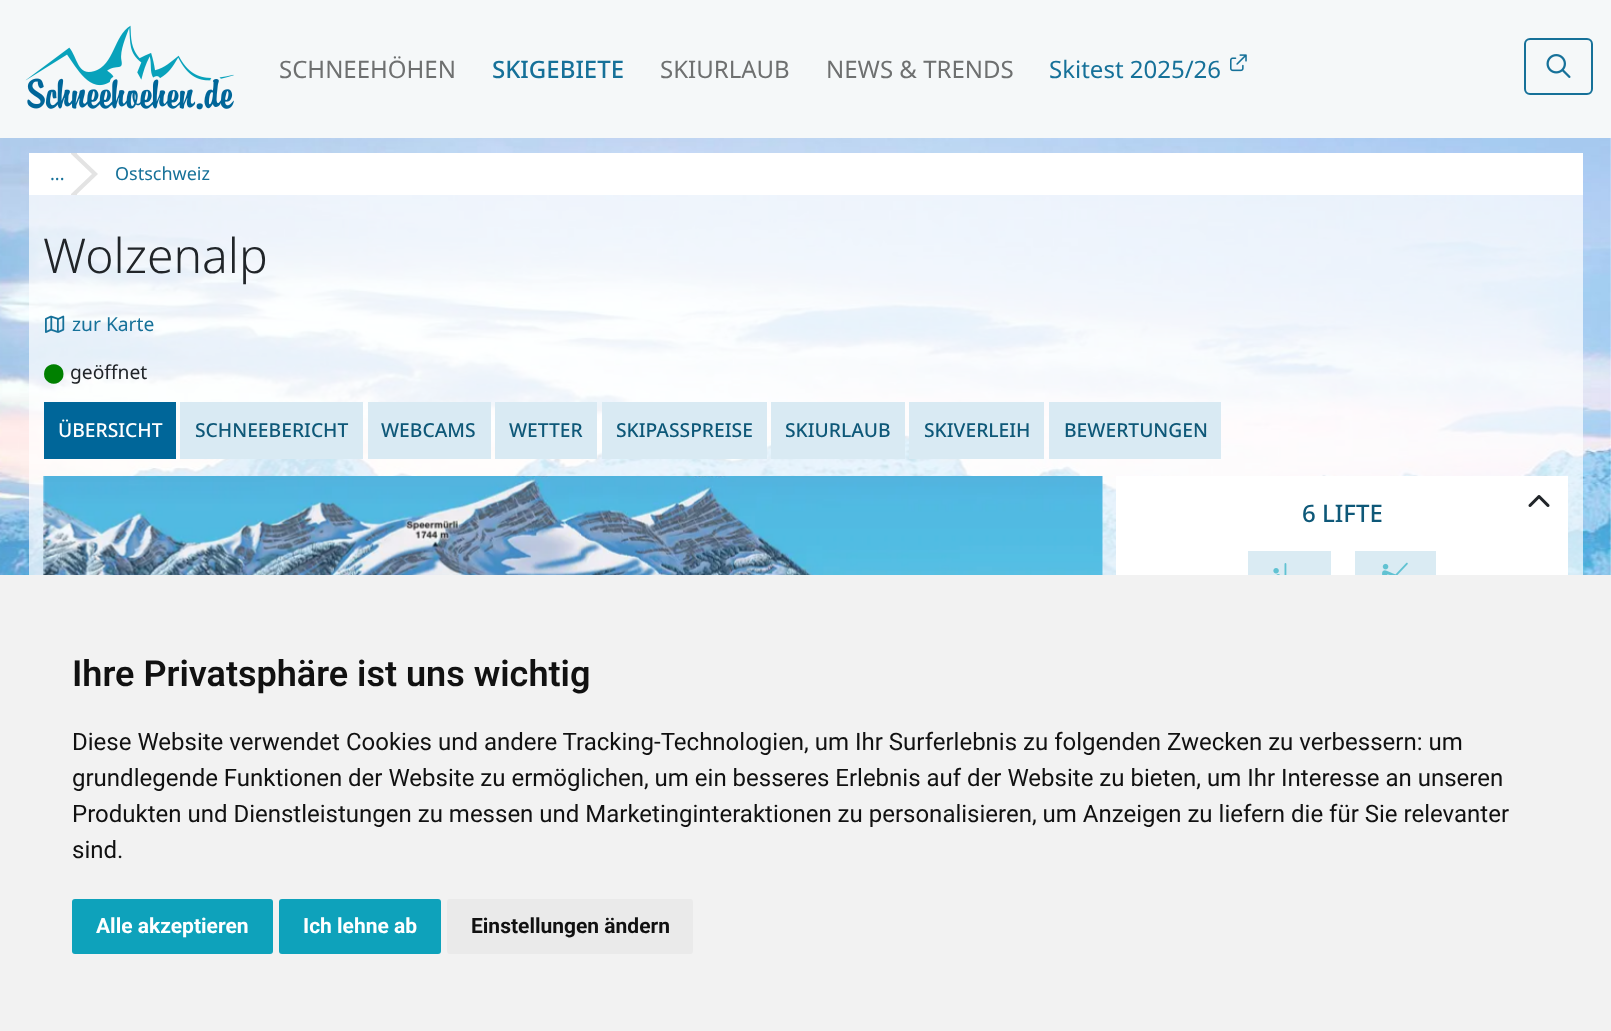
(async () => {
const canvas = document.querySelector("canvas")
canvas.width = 1611
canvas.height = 1031
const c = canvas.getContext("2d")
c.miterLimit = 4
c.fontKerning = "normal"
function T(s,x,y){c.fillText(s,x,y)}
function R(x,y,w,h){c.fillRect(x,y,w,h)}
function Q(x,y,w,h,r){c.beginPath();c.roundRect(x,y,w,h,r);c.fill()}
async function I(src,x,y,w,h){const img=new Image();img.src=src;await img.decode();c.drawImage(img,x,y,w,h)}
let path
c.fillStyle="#fff"
R(0,0,1611,1031)
await I("1.png",0,138,1611,437)
c.fillStyle="#f5f8f9"
R(0,0,1611,138)
await I("2.png",25,25,209,85)
c.font="24px Noto Sans"
c.fillStyle="#6e7070"
T("SCHNEEHÖHEN",279,78)
c.font="500 24px Noto Sans"
c.fillStyle="#167199"
T("SKIGEBIETE",492,78)
c.font="24px Noto Sans"
c.fillStyle="#6e7070"
T("SKIURLAUB",660,78)
T("NEWS & TRENDS",826,78)
c.fillStyle="#167199"
T("Skitest 2025/26",1049,78)
await I("3.png",1230,54,17,18)
c.beginPath()
c.roundRect(1525,39,67,55,5)
c.strokeStyle="#167199"
c.lineWidth=2
c.stroke()
await I("4.png",1546,54,25,24)
c.fillStyle="#ffffffb3"
R(29,195,1554,380)
c.fillStyle="#fff"
R(77,153,1506,42)
c.fillStyle="#e3e3e3"
R(71,153,6,42)
c.fillStyle="#fff"
R(29,153,42,42)
c.font="18px Noto Sans"
c.fillStyle="#167199"
T("...",50,180)
c.fillStyle="#e3e3e3"
path = new Path2D("M76 195v-42l22 21z")
c.fill(path)
c.fillStyle="#fff"
path = new Path2D("M70 195v-42l22 21z")
c.fill(path)
c.fillStyle="#167199"
T("Ostschweiz",115,180)
c.font="300 48px Noto Sans"
c.fillStyle="#212529"
T("Wolzenalp",43,273)
await I("5.png",45,315,20,18)
c.font="19.25px Noto Sans"
c.fillStyle="#167199"
T("zur Karte",72,331)
c.font="19.25px DejaVu Sans"
c.fillStyle="#008000"
T("⬤",43,379)
c.font="19.25px Noto Sans"
c.fillStyle="#212529"
T("geöffnet",70,379)
c.fillStyle="#069"
R(44,402,132,57)
c.font="500 19.25px Noto Sans"
c.fillStyle="#fff"
T("ÜBERSICHT",58,437)
c.fillStyle="#d9eaf3"
R(180,402,183,57)
c.fillStyle="#0e5878"
T("SCHNEEBERICHT",195,437)
c.fillStyle="#d9eaf3"
R(368,402,123,57)
c.fillStyle="#0e5878"
T("WEBCAMS",381,437)
c.fillStyle="#d9eaf3"
R(495,402,102,57)
c.fillStyle="#0e5878"
T("WETTER",509,437)
c.fillStyle="#d9eaf3"
R(602,402,165,57)
c.fillStyle="#0e5878"
T("SKIPASSPREISE",616,437)
c.fillStyle="#d9eaf3"
R(771,402,134,57)
c.fillStyle="#0e5878"
T("SKIURLAUB",785,437)
c.fillStyle="#d9eaf3"
R(909,402,135,57)
c.fillStyle="#0e5878"
T("SKIVERLEIH",924,437)
c.fillStyle="#d9eaf3"
R(1049,402,172,57)
c.fillStyle="#0e5878"
T("BEWERTUNGEN",1064,437)
await I("6.png",43,476,1060,99)
c.fillStyle="#fff"
R(1116,476,452,99)
await I("7.png",1528,495,22,12)
c.font="500 24px Noto Sans"
c.fillStyle="#0e5878"
T("6 LIFTE",1302,522)
c.fillStyle="#daebf3"
R(1248,551,83,24)
await I("8.png",1273,563,14,12)
R(1355,551,81,24)
await I("9.png",1382,562,26,13)
c.fillStyle="#f2f2f2"
R(0,575,1611,456)
c.font="600 36px Roboto"
c.fillStyle="#111"
T("Ihre Privatsphäre ist uns wichtig",72,686)
c.font="24px Roboto"
T("Diese Website verwendet Cookies und andere Tracking-Technologien, um Ihr Surferlebnis zu folgenden Zwecken zu verbessern: um",72,750)
T("grundlegende Funktionen der Website zu ermöglichen, um ein besseres Erlebnis auf der Website zu bieten, um Ihr Interesse an unseren",72,786)
T("Produkten und Dienstleistungen zu messen und Marketinginteraktionen zu personalisieren, um Anzeigen zu liefern die für Sie relevanter",72,822)
T("sind.",72,858)
c.fillStyle="#0ea2bb"
Q(72,899,201,55,3)
c.font="bold 21px Roboto"
c.fillStyle="#fff"
T("Alle akzeptieren",96,933)
c.fillStyle="#0ea2bb"
Q(279,899,162,55,3)
c.fillStyle="#fff"
T("Ich lehne ab",303,933)
c.fillStyle="#eaeaea"
Q(447,899,246,55,3)
c.fillStyle="#111"
T("Einstellungen ändern",471,933)
})()
